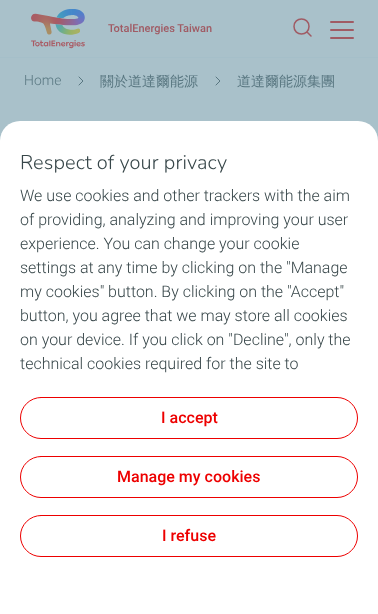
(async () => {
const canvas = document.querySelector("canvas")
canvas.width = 378
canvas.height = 614
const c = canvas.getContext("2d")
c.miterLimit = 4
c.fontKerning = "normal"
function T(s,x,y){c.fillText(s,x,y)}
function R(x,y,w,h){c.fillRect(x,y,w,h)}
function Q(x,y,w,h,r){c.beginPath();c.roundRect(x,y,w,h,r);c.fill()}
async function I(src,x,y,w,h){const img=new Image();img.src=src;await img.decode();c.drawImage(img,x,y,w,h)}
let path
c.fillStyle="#a9c1ca"
R(0,0,378,614)
c.fillStyle="#a5bfc9"
R(0,57,378,1)
await I("1.png",31,9,54,40)
c.font="500 11px Roboto"
c.fillStyle="#a05b64"
T("TotalEnergies Taiwan",108,32)
path = new Path2D("M311 36l-4-4m2-5.5c0 10-15 10-15 0c0-10 15-10 15 0z")
c.strokeStyle="#a05b64"
c.lineWidth=1.5
c.lineCap="round"
c.lineJoin="round"
c.stroke(path)
Q(330,21,24,2,1)
Q(330,29,24,2,1)
Q(330,37,24,2,1)
c.font="300 14px Roboto"
c.fillStyle="#597781"
T("Home",24,85)
path = new Path2D("M79 85l4-4l-4-4")
c.strokeStyle="#597781"
c.lineWidth=1
c.stroke(path)
c.font="500 14px WenQuanYi Zen Hei"
T("關於道達爾能源",100,86)
path = new Path2D("M216 85l4-4l-4-4")
c.stroke(path)
T("道達爾能源集團",237,86)
c.fillStyle="#fff"
c.beginPath()
c.roundRect(0,121,378,493,[20,20,0,0])
c.fill()
c.letterSpacing="0.1px"
c.font="300 20px Nunito"
c.fillStyle="#374649"
T("Respect of your privacy",20,169)
c.letterSpacing="0px"
c.font="300 16px Roboto"
T("We use cookies and other trackers with the aim",20,201)
T("of providing, analyzing and improving your user",20,225)
T("experience. You can change your cookie",20,249)
T("settings at any time by clicking on the \"Manage",20,273)
T("my cookies\" button. By clicking on the \"Accept\"",20,297)
T("button, you agree that we may store all cookies",20,321)
T("on your device. If you click on \"Decline\", only the",20,345)
T("technical cookies required for the site to",20,369)
c.beginPath()
c.roundRect(20.5,397.5,337,41,20.5)
c.strokeStyle="#ed0000"
c.lineJoin="miter"
c.stroke()
c.font="500 16px Roboto"
c.fillStyle="#ed0000"
T("I accept",161,423)
c.beginPath()
c.roundRect(20.5,456.5,337,41,20.5)
c.stroke()
T("Manage my cookies",117,482)
c.beginPath()
c.roundRect(20.5,515.5,337,41,20.5)
c.stroke()
T("I refuse",162,541)
})()
